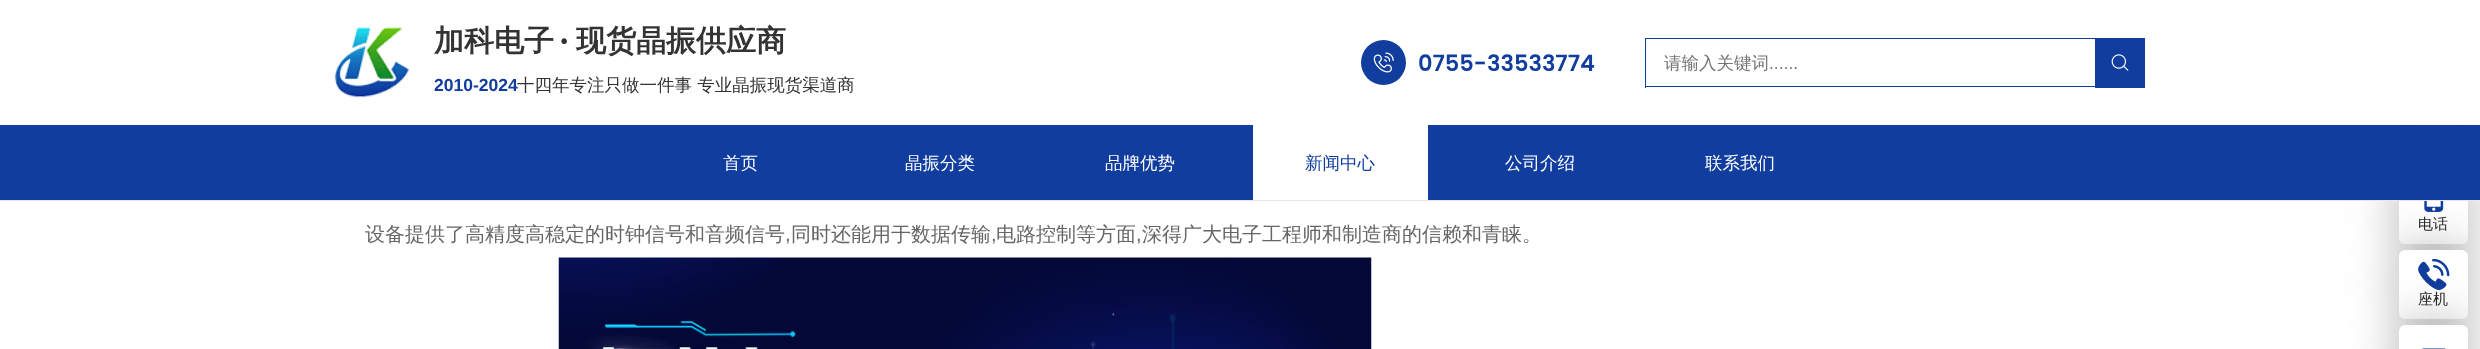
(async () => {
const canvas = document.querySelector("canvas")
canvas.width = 2480
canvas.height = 349
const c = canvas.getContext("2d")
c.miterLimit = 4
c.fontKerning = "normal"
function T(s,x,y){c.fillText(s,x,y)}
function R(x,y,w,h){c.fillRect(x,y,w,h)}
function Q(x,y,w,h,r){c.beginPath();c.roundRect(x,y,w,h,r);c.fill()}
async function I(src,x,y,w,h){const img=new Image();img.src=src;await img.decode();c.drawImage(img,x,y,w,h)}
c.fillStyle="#fff"
R(0,0,2480,349)
c.fillStyle="#0000004d"
c.filter="blur(25px)"
c.beginPath()
c.roundRect(2399,175,69,69,6)
c.fill()
c.filter="none"
c.fillStyle="#fff"
Q(2399,175,69,69,6)
await I("5.png",2424,201,20,11)
c.fillStyle="#0000004d"
c.filter="blur(25px)"
c.beginPath()
c.roundRect(2399,250,69,69,6)
c.fill()
c.filter="none"
c.fillStyle="#e7e7e7"
R(0,200,2480,1)
await I("1.png",334,27,75,71)
c.font="bold 30px WenQuanYi Zen Hei"
c.fillStyle="#333"
T("加科电子",434,51)
c.font="900 30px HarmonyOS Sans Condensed"
T("·",560,51)
c.font="bold 30px WenQuanYi Zen Hei"
T("现货晶振供应商",576,51)
c.font="bold 17.5px Liberation Sans"
c.fillStyle="#113d9f"
T("2010-2024",434,91)
c.font="500 17.5px WenQuanYi Zen Hei"
c.fillStyle="#333"
T("十四年专注只做一件事 专业晶振现货渠道商",517,91)
c.fillStyle="#113d9f"
c.beginPath()
c.arc(1383.5,62.5,22.5,0,7)
c.fill()
await I("2.png",1373,52,21,21)
c.font="600 22.5px Poppins"
T("0755-33533774",1418,71)
R(1645,38,450,1)
R(1645,86,450,1)
R(1645,38,1,50)
c.font="500 17.5px WenQuanYi Zen Hei"
c.fillStyle="#757575"
T("请输入关键词",1664,69)
c.font="17.5px Liberation Sans"
T("......",1769,69)
c.fillStyle="#113d9f"
R(2095,38,50,50)
await I("3.png",2111,54,18,17)
R(0,125,2480,75)
c.font="500 17.5px WenQuanYi Zen Hei"
c.fillStyle="#fff"
T("首页",723,169)
T("晶振分类",905,169)
T("品牌优势",1105,169)
R(1253,125,175,75)
c.fillStyle="#113d9f"
T("新闻中心",1305,169)
c.fillStyle="#fff"
T("公司介绍",1505,169)
T("联系我们",1705,169)
c.font="500 20px WenQuanYi Zen Hei"
c.fillStyle="#666"
T("设备提供了高精度高稳定的时钟信号和音频信号",365,241)
c.font="20px Liberation Sans"
T(",",785,241)
c.font="500 20px WenQuanYi Zen Hei"
T("同时还能用于数据传输",791,241)
c.font="20px Liberation Sans"
T(",",991,241)
c.font="500 20px WenQuanYi Zen Hei"
T("电路控制等方面",996,241)
c.font="20px Liberation Sans"
T(",",1136,241)
c.font="500 20px WenQuanYi Zen Hei"
T("深得广大电子工程师和制造商的信赖和青睐。",1142,241)
await I("4.png",558,257,814,92)
c.font="500 15px WenQuanYi Zen Hei"
c.fillStyle="#262626"
T("电话",2418,229)
c.fillStyle="#fff"
Q(2399,250,69,69,6)
await I("7.png",2418,258,32,32)
c.fillStyle="#0000004d"
c.filter="blur(25px)"
c.beginPath()
c.roundRect(2399,325,69,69,6)
c.fill()
c.filter="none"
c.fillStyle="#fff"
Q(2399,325,69,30,6)
await I("6.png",2422,348,24,1)
c.fillStyle="#262626"
T("座机",2418,304)
})()
